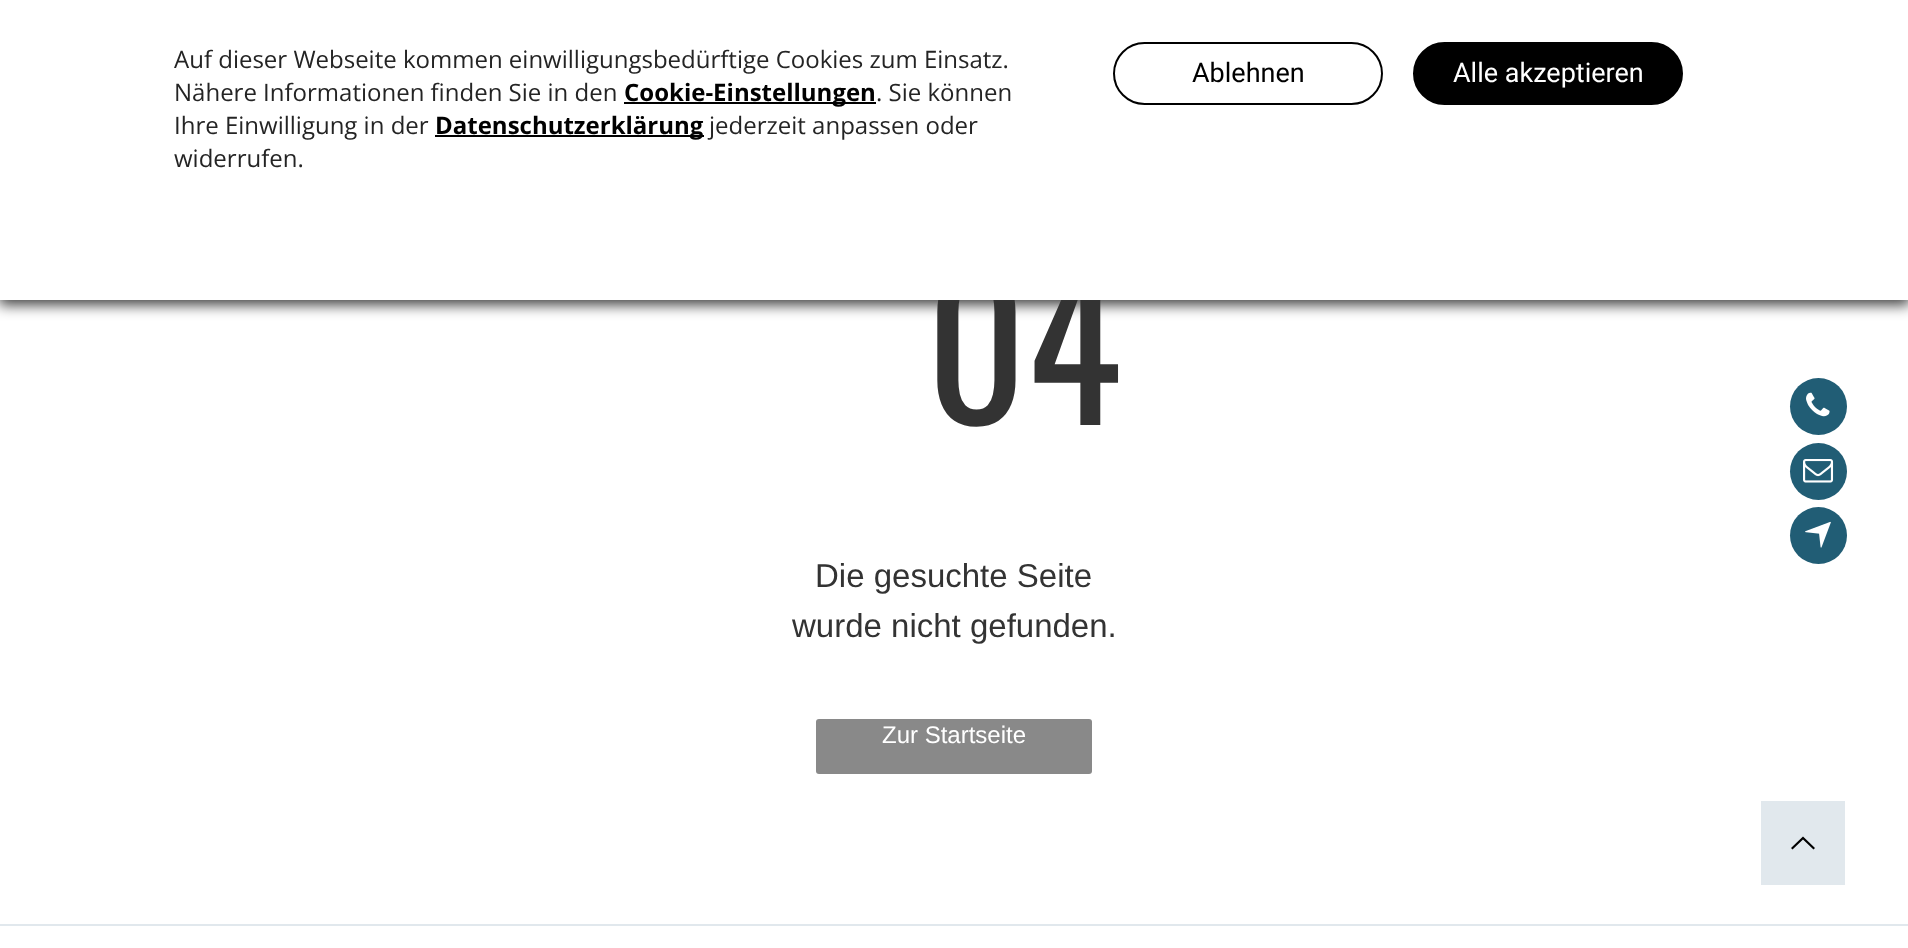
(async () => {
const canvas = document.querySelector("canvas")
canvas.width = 1908
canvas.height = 948
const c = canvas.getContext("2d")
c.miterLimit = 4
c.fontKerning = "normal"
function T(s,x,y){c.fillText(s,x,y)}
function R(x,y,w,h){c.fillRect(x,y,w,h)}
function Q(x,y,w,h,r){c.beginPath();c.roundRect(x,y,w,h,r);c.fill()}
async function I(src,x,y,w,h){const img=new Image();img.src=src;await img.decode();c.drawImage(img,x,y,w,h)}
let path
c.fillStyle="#fff"
R(0,0,1908,948)
c.fillStyle="#000000bf"
c.filter="blur(7px)"
c.beginPath()
c.rect(-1,2,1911,303)
c.fill()
c.filter="none"
c.font="195px Oswald"
c.fillStyle="#333"
T("04",926,425)
c.fillStyle="#fff"
R(0,0,1908,300)
c.font="24px Open Sans"
c.fillStyle="#242424"
T("Auf dieser Webseite kommen einwilligungsbedürftige Cookies zum Einsatz.",174,68)
T("Nähere Informationen finden Sie in den",174,101)
c.fillStyle="#000"
R(624,102,252,2)
c.font="bold 24px Open Sans"
T("Cookie-Einstellungen",624,101)
c.font="24px Open Sans"
c.fillStyle="#242424"
T(". Sie können",876,101)
T("Ihre Einwilligung in der",174,134)
c.fillStyle="#000"
R(435,135,269,2)
c.font="bold 24px Open Sans"
T("Datenschutzerklärung",435,134)
c.font="24px Open Sans"
c.fillStyle="#242424"
T("jederzeit anpassen oder",709,134)
T("widerrufen.",174,167)
c.beginPath()
c.roundRect(1114,43,268,61,30.5)
c.strokeStyle="#000"
c.lineWidth=2
c.stroke()
c.font="27px Roboto"
c.fillStyle="#000"
T("Ablehnen",1192,82)
c.beginPath()
c.roundRect(1414,43,268,61,30.5)
c.fill()
c.stroke()
c.fillStyle="#fff"
T("Alle akzeptieren",1453,82)
c.font="33px Liberation Sans"
c.fillStyle="#333"
T("Die gesuchte Seite",815,587)
T("wurde nicht gefunden.",792,637)
c.fillStyle="#898989"
Q(816,719,276,55,3)
c.font="24px Liberation Sans"
c.fillStyle="#fff"
T("Zur Startseite",882,743)
c.fillStyle="#215d75"
c.beginPath()
c.arc(1818.5,406.5,28.5,0,7)
c.fill()
await I("1.png",1806,392,24,25)
c.beginPath()
c.arc(1818.5,471.5,28.5,0,7)
c.fill()
await I("2.png",1803,459,31,24)
c.beginPath()
c.arc(1818.5,535.5,28.5,0,7)
c.fill()
await I("3.png",1805,521,26,27)
c.fillStyle="#e1e8ed"
R(1761,801,84,84)
c.fillStyle="#000"
path = new Path2D("M1792.5 849.5l-1.5-1.5l12-11.5l12 11.5l-1.5 1.5l-10.5-10z")
c.fill(path)
c.fillStyle="#e1e8ed"
R(0,924,1908,2)
})()
